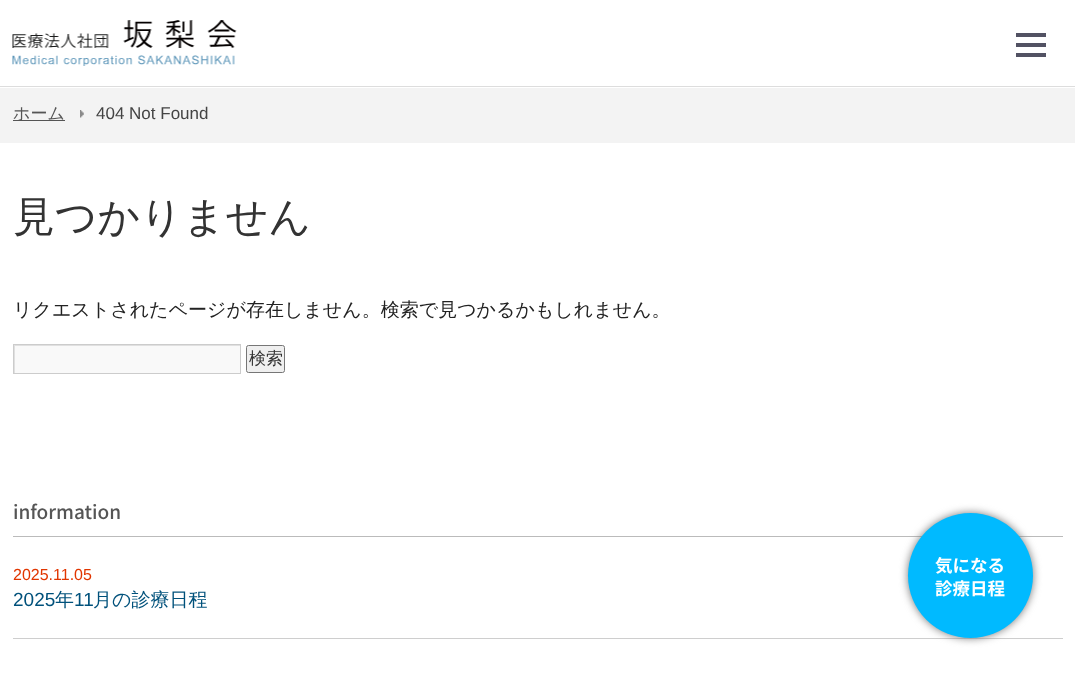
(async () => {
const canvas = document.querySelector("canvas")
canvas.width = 1075
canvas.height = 679
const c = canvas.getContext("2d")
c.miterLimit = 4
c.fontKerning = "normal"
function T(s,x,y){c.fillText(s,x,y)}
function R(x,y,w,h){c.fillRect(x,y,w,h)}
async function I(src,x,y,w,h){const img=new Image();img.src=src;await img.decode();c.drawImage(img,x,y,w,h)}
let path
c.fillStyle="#fff"
R(0,0,1075,679)
c.fillStyle="#ddd"
R(0,86,1075,1)
await I("1.png",12,20,225,46)
c.fillStyle="#525263"
R(1016,43,30,4)
R(1016,33,30,4)
R(1016,53,30,4)
c.fillStyle="#f3f3f3"
R(0,88,1075,55)
c.fillStyle="#555"
R(13,120,52,1)
c.font="500 17px WenQuanYi Zen Hei"
T("ホーム",13,119)
await I("2.png",80,110,4,8)
c.font="17px Liberation Sans"
c.fillStyle="#444"
T("404 Not Found",96,119)
c.font="500 41.75px WenQuanYi Zen Hei"
c.fillStyle="#333"
T("見つかりません",13,231)
c.font="500 19px WenQuanYi Zen Hei"
c.fillStyle="#222"
T("リクエストされたページが存在しません。検索で見つかるかもしれません。",13,316)
c.fillStyle="#f9f9f9"
R(15,346,225,27)
c.save()
c.beginPath()
c.rect(14,345,226,28)
c.clip()
c.fillStyle="#e0e0e0"
path = new Path2D("M-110 221h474v275h-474zm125 125h226v28h-226z")
c.fill(path,"evenodd")
c.restore()
c.strokeStyle="#ccc"
c.strokeRect(13.5,344.5,227,29)
c.fillStyle="#efefef"
c.beginPath()
c.roundRect(246.5,345.5,38,27,2)
c.fill()
c.strokeStyle="#767676"
c.stroke()
c.font="500 17px WenQuanYi Zen Hei"
c.fillStyle="#333"
T("検索",249,364)
c.fillStyle="#bbb"
R(13,536,1050,1)
c.font="500 19px Noto Sans JP"
c.fillStyle="#555"
T("information",13,519)
c.font="16px Liberation Sans"
c.fillStyle="#e13500"
T("2025.11.05",13,580)
c.fillStyle="#cecece"
R(13,638,1050,1)
c.font="19px Liberation Sans"
c.fillStyle="#00517b"
T("2025",13,606)
c.font="500 19px WenQuanYi Zen Hei"
T("年",55,606)
c.font="19px Liberation Sans"
T("11",74,606)
c.font="500 19px WenQuanYi Zen Hei"
T("月の診療日程",93,606)
c.fillStyle="#777"
c.filter="blur(4.5px)"
c.beginPath()
c.roundRect(908,513,125,125,62.5)
c.fill()
c.filter="none"
c.fillStyle="#00baff"
c.beginPath()
c.arc(970.5,575.5,62.5,0,7)
c.fill()
c.font="bold 17.5px Noto Sans JP"
c.fillStyle="#fff"
T("気になる",935,572)
T("診療日程",935,595)
})()
